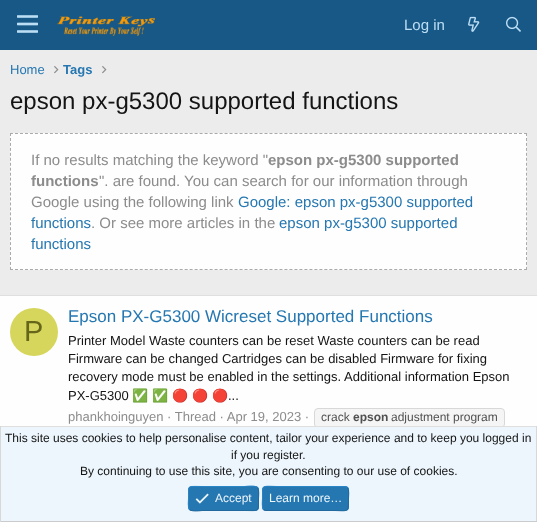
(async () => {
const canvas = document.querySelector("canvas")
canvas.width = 537
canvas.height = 522
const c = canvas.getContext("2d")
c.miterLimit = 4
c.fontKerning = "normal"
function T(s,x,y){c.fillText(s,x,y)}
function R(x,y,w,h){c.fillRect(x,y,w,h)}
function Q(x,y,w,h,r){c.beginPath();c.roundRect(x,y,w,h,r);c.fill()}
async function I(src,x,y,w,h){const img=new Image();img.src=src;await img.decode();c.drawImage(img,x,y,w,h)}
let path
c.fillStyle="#ececec"
R(0,0,537,522)
c.fillStyle="#185886"
R(0,0,537,50)
await I("1.png",17,15,21,18)
await I("2.png",56,16,99,20)
c.font="15px Liberation Sans"
c.fillStyle="#bcdef5"
T("Log in",404,30)
await I("3.png",468,16,12,16)
await I("4.png",506,16,15,16)
c.font="13px Liberation Sans"
c.fillStyle="#2577b1"
T("Home",10,74)
await I("5.png",54,66,5,8)
c.font="bold 13px Liberation Sans"
T("Tags",63,74)
await I("5.png",102,66,5,8)
c.font="24px Liberation Sans"
c.fillStyle="#141414"
T("epson px-g5300 supported functions",10,109)
c.fillStyle="#fefefe"
R(10,133,517,137)
path = new Path2D("M10 133.5h517")
c.strokeStyle="#aaa"
c.setLineDash([3,1.99])
c.stroke(path)
path = new Path2D("M526.5 133v137")
c.setLineDash([3,1.96])
c.stroke(path)
path = new Path2D("M10 269.5h517")
c.setLineDash([3,1.99])
c.stroke(path)
path = new Path2D("M10.5 133v137")
c.setLineDash([3,1.96])
c.stroke(path)
c.font="15px Liberation Sans"
c.fillStyle="#8c8c8c"
T("If no results matching the keyword \"",31,165)
c.font="bold 15px Liberation Sans"
T("epson px-g5300 supported",268,165)
T("functions",31,186)
c.font="15px Liberation Sans"
T("\". are found. You can search for our information through",99,186)
T("Google using the following link",31,207)
c.fillStyle="#2577b1"
T("Google: epson px-g5300 supported",238,207)
T("functions",31,228)
c.fillStyle="#8c8c8c"
T(". Or see more articles in the",91,228)
c.fillStyle="#2577b1"
T("epson px-g5300 supported",279,228)
T("functions",31,249)
c.fillStyle="#fefefe"
R(0,296,537,130)
c.fillStyle="#dfdfdf"
R(0,295,537,1)
c.fillStyle="#d6d65c"
c.beginPath()
c.arc(34,332,24,0,7)
c.fill()
c.font="29px Liberation Sans"
c.fillStyle="#66661a"
T("P",24,341)
c.font="17px Liberation Sans"
c.fillStyle="#2577b1"
T("Epson PX-G5300 Wicreset Supported Functions",68,322)
c.font="13px Liberation Sans"
c.fillStyle="#141414"
T("Printer Model Waste counters can be reset Waste counters can be read",68,345)
T("Firmware can be changed Cartridges can be disabled Firmware for fixing",68,363)
T("recovery mode must be enabled in the settings. Additional information Epson",68,381)
T("PX-G5300",68,400)
c.font="13px Noto Color Emoji"
T("✅",132,400)
T("✅",152,400)
T("🔴",172,400)
T("🔴",192,400)
T("🔴",212,400)
c.font="13px Liberation Sans"
T("...",228,400)
c.fillStyle="#8c8c8c"
T("phankhoinguyen · Thread · Apr 19, 2023 ·",68,421)
c.fillStyle="#f5f5f5"
c.beginPath()
c.roundRect(314.5,408.5,190,19,3.5)
c.fill()
c.strokeStyle="#d8d8d8"
c.setLineDash([])
c.stroke()
c.font="12px Liberation Sans"
c.fillStyle="#505050"
T("crack",321,421)
c.font="bold 12px Liberation Sans"
T("epson",353,421)
c.font="12px Liberation Sans"
T("adjustment program",391,421)
c.fillStyle="#edf6fd"
R(1,427,535,94)
c.fillStyle="#dfdfdf"
R(0,426,537,1)
c.fillStyle="#d8d8d8"
R(536,426,1,96)
c.fillStyle="#cbcbcb"
R(0,521,537,1)
c.fillStyle="#d8d8d8"
R(0,426,1,96)
c.fillStyle="#141414"
T("This site uses cookies to help personalise content, tailor your experience and to keep you logged in",5,442)
T("if you register.",231,459)
T("By continuing to use this site, you are consenting to our use of cookies.",80,475)
c.fillStyle="#2577b1"
Q(188,486,71,25,4)
path = new Path2D("M257.5 487.5c2 2.5 1 8.5 1 11c0 14 1 12-14 12h-42c-1 0-10.5 1.5-13-1")
c.strokeStyle="#21699c"
c.stroke(path)
path = new Path2D("M189.5 509.5c-2-2.5-1-8.5-1-11c0-14-1-12 14-12h42c1 0 10.5-1.5 13 1")
c.strokeStyle="#2985c6"
c.stroke(path)
await I("6.png",195,493,14,11)
c.fillStyle="#edf6fd"
T("Accept",215,502)
c.fillStyle="#2577b1"
Q(262,486,87,25,4)
path = new Path2D("M347.5 487.5c2 2.5 1 8.5 1 11c0 15 .5 12-16.5 12h-66l-2.5-1")
c.strokeStyle="#21699c"
c.stroke(path)
path = new Path2D("M263.5 509.5c-2-2.5-1-8.5-1-11c0-15-.5-12 16.5-12h66l2.5 1")
c.strokeStyle="#2985c6"
c.stroke(path)
c.fillStyle="#edf6fd"
T("Learn more…",269,502)
})()
